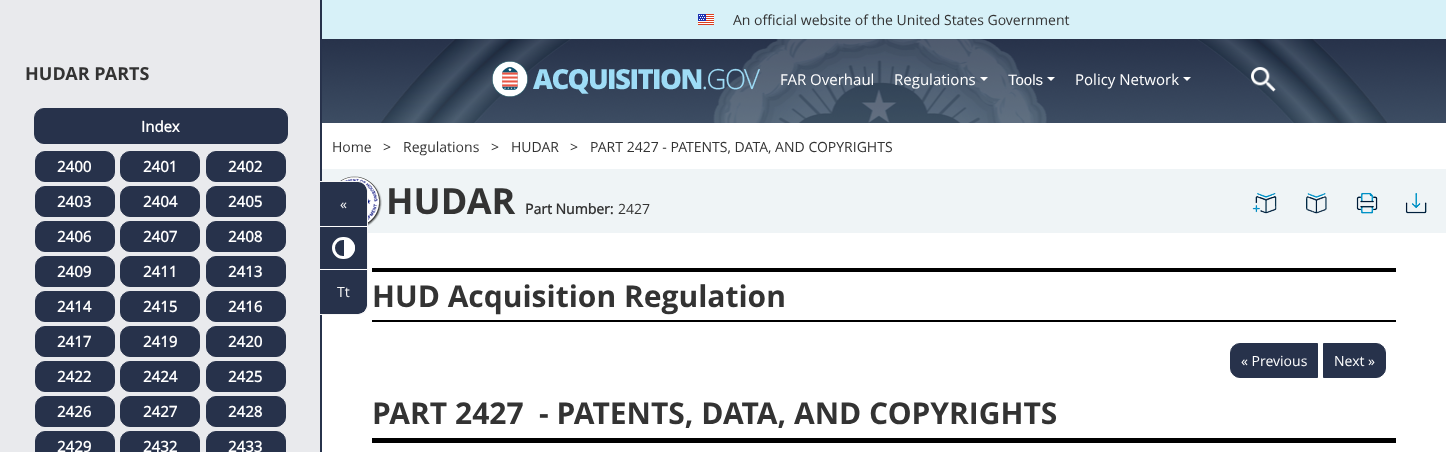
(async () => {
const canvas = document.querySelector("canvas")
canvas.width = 1446
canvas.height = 452
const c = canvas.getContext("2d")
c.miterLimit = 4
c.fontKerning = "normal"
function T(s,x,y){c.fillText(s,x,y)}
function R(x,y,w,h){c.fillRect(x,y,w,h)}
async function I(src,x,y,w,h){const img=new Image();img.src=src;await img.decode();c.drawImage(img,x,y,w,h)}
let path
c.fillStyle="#fff"
R(0,0,1446,452)
c.fillStyle="#d7f1f8"
R(322,0,1124,39)
await I("1.png",698,14,16,11)
c.font="14px Open Sans"
c.fillStyle="#333"
T("An official website of the United States Government",733,25)
await I("2.png",322,39,1124,84)
await I("3.png",381,39,1006,84)
await I("4.png",492,61,268,36)
c.font="15px Open Sans"
c.fillStyle="#fff"
T("FAR Overhaul",780,85)
T("Regulations",894,85)
path = new Path2D("M980 77h8l-4 4z")
c.fill(path)
c.font="15px Liberation Sans"
T("Tools",1008,85)
path = new Path2D("M1047 77h8l-4 4z")
c.fill(path)
c.font="15px Open Sans"
T("Policy Network",1075,85)
path = new Path2D("M1183 77h8l-4 4z")
c.fill(path)
await I("5.png",1251,67,25,25)
c.fillStyle="#e9eaed"
R(0,0,320,452)
c.fillStyle="#27324b"
R(320,0,2,452)
c.font="bold 18px Open Sans"
c.fillStyle="#333"
T("HUDAR PARTS",25,80)
c.fillStyle="#27324b"
c.beginPath()
c.roundRect(34.5,108.5,253,35,9.5)
c.fill()
c.strokeStyle="#27324b"
c.stroke()
c.font="bold 15px 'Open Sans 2'"
c.fillStyle="#fff"
T("Index",141,132)
c.fillStyle="#27324b"
c.beginPath()
c.roundRect(35.5,151.5,79,30,9.5)
c.fill()
c.stroke()
c.fillStyle="#fff"
T("2400",57,172)
c.fillStyle="#27324b"
c.beginPath()
c.roundRect(120.5,151.5,79,30,9.5)
c.fill()
c.stroke()
c.fillStyle="#fff"
T("2401",143,172)
c.fillStyle="#27324b"
c.beginPath()
c.roundRect(206.5,151.5,79,30,9.5)
c.fill()
c.stroke()
c.fillStyle="#fff"
T("2402",228,172)
c.fillStyle="#27324b"
c.beginPath()
c.roundRect(35.5,186.5,79,30,9.5)
c.fill()
c.stroke()
c.fillStyle="#fff"
T("2403",57,207)
c.fillStyle="#27324b"
c.beginPath()
c.roundRect(120.5,186.5,79,30,9.5)
c.fill()
c.stroke()
c.fillStyle="#fff"
T("2404",143,207)
c.fillStyle="#27324b"
c.beginPath()
c.roundRect(206.5,186.5,79,30,9.5)
c.fill()
c.stroke()
c.fillStyle="#fff"
T("2405",228,207)
c.fillStyle="#27324b"
c.beginPath()
c.roundRect(35.5,221.5,79,30,9.5)
c.fill()
c.stroke()
c.fillStyle="#fff"
T("2406",57,242)
c.fillStyle="#27324b"
c.beginPath()
c.roundRect(120.5,221.5,79,30,9.5)
c.fill()
c.stroke()
c.fillStyle="#fff"
T("2407",143,242)
c.fillStyle="#27324b"
c.beginPath()
c.roundRect(206.5,221.5,79,30,9.5)
c.fill()
c.stroke()
c.fillStyle="#fff"
T("2408",228,242)
c.fillStyle="#27324b"
c.beginPath()
c.roundRect(35.5,256.5,79,30,9.5)
c.fill()
c.stroke()
c.fillStyle="#fff"
T("2409",57,277)
c.fillStyle="#27324b"
c.beginPath()
c.roundRect(120.5,256.5,79,30,9.5)
c.fill()
c.stroke()
c.fillStyle="#fff"
T("2411",143,277)
c.fillStyle="#27324b"
c.beginPath()
c.roundRect(206.5,256.5,79,30,9.5)
c.fill()
c.stroke()
c.fillStyle="#fff"
T("2413",228,277)
c.fillStyle="#27324b"
c.beginPath()
c.roundRect(35.5,291.5,79,30,9.5)
c.fill()
c.stroke()
c.fillStyle="#fff"
T("2414",57,312)
c.fillStyle="#27324b"
c.beginPath()
c.roundRect(120.5,291.5,79,30,9.5)
c.fill()
c.stroke()
c.fillStyle="#fff"
T("2415",143,312)
c.fillStyle="#27324b"
c.beginPath()
c.roundRect(206.5,291.5,79,30,9.5)
c.fill()
c.stroke()
c.fillStyle="#fff"
T("2416",228,312)
c.fillStyle="#27324b"
c.beginPath()
c.roundRect(35.5,326.5,79,30,9.5)
c.fill()
c.stroke()
c.fillStyle="#fff"
T("2417",57,347)
c.fillStyle="#27324b"
c.beginPath()
c.roundRect(120.5,326.5,79,30,9.5)
c.fill()
c.stroke()
c.fillStyle="#fff"
T("2419",143,347)
c.fillStyle="#27324b"
c.beginPath()
c.roundRect(206.5,326.5,79,30,9.5)
c.fill()
c.stroke()
c.fillStyle="#fff"
T("2420",228,347)
c.fillStyle="#27324b"
c.beginPath()
c.roundRect(35.5,361.5,79,30,9.5)
c.fill()
c.stroke()
c.fillStyle="#fff"
T("2422",57,382)
c.fillStyle="#27324b"
c.beginPath()
c.roundRect(120.5,361.5,79,30,9.5)
c.fill()
c.stroke()
c.fillStyle="#fff"
T("2424",143,382)
c.fillStyle="#27324b"
c.beginPath()
c.roundRect(206.5,361.5,79,30,9.5)
c.fill()
c.stroke()
c.fillStyle="#fff"
T("2425",228,382)
c.fillStyle="#27324b"
c.beginPath()
c.roundRect(35.5,396.5,79,30,9.5)
c.fill()
c.stroke()
c.fillStyle="#fff"
T("2426",57,417)
c.fillStyle="#27324b"
c.beginPath()
c.roundRect(120.5,396.5,79,30,9.5)
c.fill()
c.stroke()
c.fillStyle="#fff"
T("2427",143,417)
c.fillStyle="#27324b"
c.beginPath()
c.roundRect(206.5,396.5,79,30,9.5)
c.fill()
c.stroke()
c.fillStyle="#fff"
T("2428",228,417)
c.fillStyle="#27324b"
c.beginPath()
c.roundRect(35.5,431.5,79,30,9.5)
c.fill()
c.stroke()
c.fillStyle="#fff"
T("2429",57,452)
c.fillStyle="#27324b"
c.beginPath()
c.roundRect(120.5,431.5,79,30,9.5)
c.fill()
c.stroke()
c.fillStyle="#fff"
T("2432",143,452)
c.fillStyle="#27324b"
c.beginPath()
c.roundRect(206.5,431.5,79,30,9.5)
c.fill()
c.stroke()
c.fillStyle="#fff"
T("2433",228,452)
c.font="14px Open Sans"
c.fillStyle="#333"
T("Home",332,152)
T(">",383,152)
T("Regulations",403,152)
T(">",491,152)
T("HUDAR",511,152)
T(">",570,152)
T("PART 2427 - PATENTS, DATA, AND COPYRIGHTS",590,152)
c.fillStyle="#eff4f6"
R(322,169,1124,64)
await I("6.png",340,176,42,50)
c.font="bold 36px Open Sans"
c.fillStyle="#333"
T("HUDAR",386,214)
c.font="bold 14px 'Open Sans 2'"
T("Part Number:",525,214)
c.font="14px Open Sans"
T("2427",618,214)
await I("7.png",1252,193,25,21)
await I("8.png",1306,193,21,21)
await I("9.png",1356,192,22,22)
await I("10.png",1405,193,22,21)
c.fillStyle="#000"
R(372,268,1024,4)
R(372,320,1024,2)
c.font="bold 30px Open Sans"
c.fillStyle="#333"
T("HUD Acquisition Regulation",372,307)
c.fillStyle="#27324b"
c.beginPath()
c.roundRect(1230.5,343.5,87,34,[9.5,0,0,9.5])
c.fill()
c.stroke()
c.font="14px Open Sans"
c.fillStyle="#fff"
T("« Previous",1241,366)
c.fillStyle="#27324b"
c.beginPath()
c.roundRect(1323.5,343.5,62,34,[0,9.5,9.5,0])
c.fill()
c.stroke()
c.fillStyle="#fff"
T("Next »",1334,366)
c.fillStyle="#000"
R(372,438,1024,5)
c.font="bold 30px Open Sans"
c.fillStyle="#333"
T("PART 2427",372,424)
T("- PATENTS, DATA, AND COPYRIGHTS",539,424)
c.fillStyle="#27324b"
c.beginPath()
c.roundRect(320,182,47,132,[0,9,9,0])
c.fill()
c.fillStyle="#f6f6f6"
path = new Path2D("M320 181h38c6 0 10 4 10 10v114c0 6-4 10-10 10h-38zm0 1h38c5 0 9 4 9 9v114c0 5-4 9-9 9h-38z")
c.fill(path,"evenodd")
c.save()
c.beginPath()
c.roundRect(320,182,47,132,[0,9,9,0])
c.clip()
c.fillStyle="#27324b"
c.beginPath()
c.roundRect(320,182,47,45,[0,10,0,0])
c.fill()
c.restore()
c.fillStyle="#fff"
R(320,226,47,1)
c.font="14px Open Sans"
c.fillStyle="#f6f6f6"
T("«",340,209)
c.fillStyle="#fff"
R(320,269,47,1)
c.beginPath()
c.roundRect(333.5,238.5,20,19,9.5)
c.strokeStyle="#fff"
c.lineWidth=3
c.stroke()
c.beginPath()
c.roundRect(344,240,11,16,[0,8,8,0])
c.fill()
c.save()
c.beginPath()
c.roundRect(320,182,47,132,[0,9,9,0])
c.clip()
c.fillStyle="#27324b"
c.beginPath()
c.roundRect(320,270,47,44,[0,0,10,0])
c.fill()
c.restore()
c.fillStyle="#f6f6f6"
T("Tt",337,297)
})()
